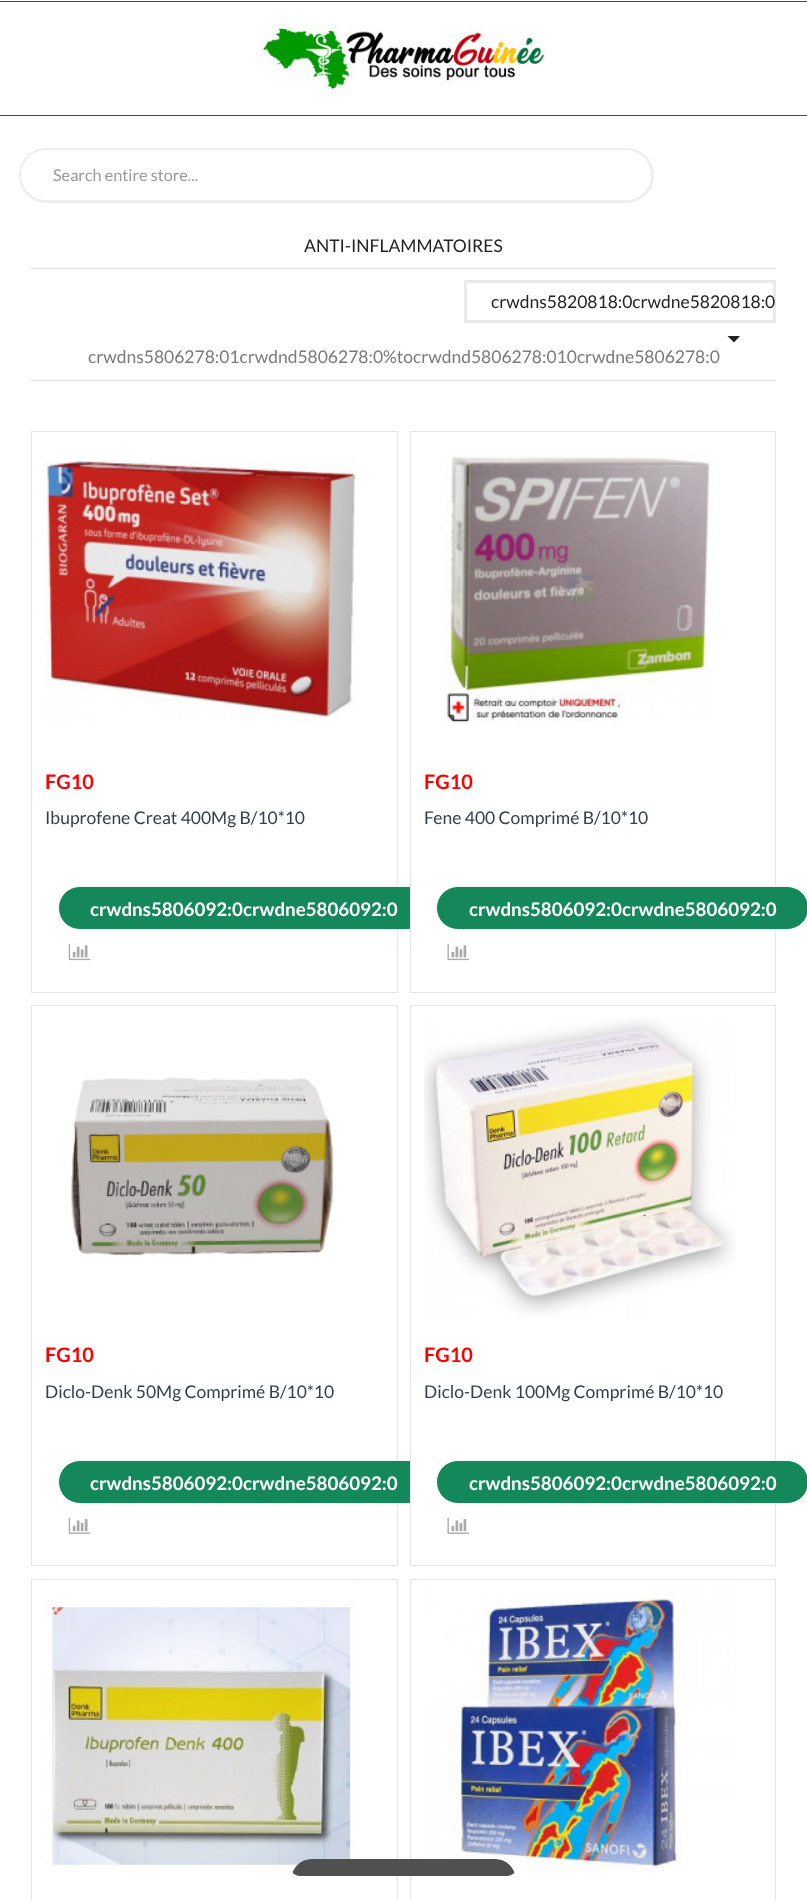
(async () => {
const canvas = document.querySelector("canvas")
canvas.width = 807
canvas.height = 1900
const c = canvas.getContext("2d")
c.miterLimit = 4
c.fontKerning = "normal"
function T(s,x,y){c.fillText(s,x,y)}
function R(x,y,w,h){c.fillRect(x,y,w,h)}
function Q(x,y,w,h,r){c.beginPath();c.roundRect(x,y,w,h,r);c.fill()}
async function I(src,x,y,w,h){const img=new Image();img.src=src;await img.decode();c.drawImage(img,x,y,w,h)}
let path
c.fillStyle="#fff"
R(0,0,807,1900)
c.fillStyle="#007346"
R(0,115,807,1)
R(0,1,807,1)
await I("1.png",261,27,285,63)
c.beginPath()
c.roundRect(20.5,149.5,632,52,26)
c.strokeStyle="#eee"
c.lineWidth=3
c.stroke()
c.fillStyle="#fff"
Q(21,150,630,50,25)
c.font="16.25px Lato"
c.fillStyle="#999"
T("Search entire store...",53,181)
c.fillStyle="#fff"
c.beginPath()
c.roundRect(599,150,52,50,[0,25,25,0])
c.fill()
c.font="17.5px Lato"
c.fillStyle="#232323"
T("ANTI-INFLAMMATOIRES",304,252)
c.fillStyle="#e1e1e1"
R(31,268,745,1)
R(31,380,745,1)
c.strokeStyle="#eaeaea"
c.strokeRect(465.5,281.5,309,40)
c.fillStyle="#232323"
T("crwdns5820818:0crwdne5820818:0",491,308)
path = new Path2D("M727.5 336h12.5l-6 6.5z")
c.fill(path)
c.fillStyle="#7a7a7a"
T("crwdns5806278:01crwdnd5806278:0%tocrwdnd5806278:010crwdne5806278:0",88,363)
c.strokeStyle="#e6e6e6"
c.lineWidth=1
c.strokeRect(31.5,431.5,366,561)
await I("2.png",45,460,312,262)
c.font="bold 20px Lato"
c.fillStyle="#f00"
T("FG10",45,789)
c.font="17.5px Lato"
c.fillStyle="#333e48"
T("Ibuprofene Creat 400Mg B/10*10",45,824)
c.fillStyle="#15885b"
c.beginPath()
c.roundRect(58.5,886.5,371,43,21.5)
c.fill()
c.strokeStyle="#f2f5f7"
c.stroke()
c.font="bold 18.75px Lato"
c.fillStyle="#fff"
T("crwdns5806092:0crwdne5806092:0",90,916)
await I("3.png",68,944,23,17)
R(411,886,19,44)
c.strokeStyle="#e6e6e6"
c.strokeRect(410.5,431.5,365,561)
await I("4.png",444,454,269,269)
c.font="bold 20px Lato"
c.fillStyle="#f00"
T("FG10",424,789)
c.font="17.5px Lato"
c.fillStyle="#333e48"
T("Fene 400 Comprimé B/10*10",424,824)
c.fillStyle="#15885b"
c.beginPath()
c.roundRect(436.5,886.5,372,43,21.5)
c.fill()
c.strokeStyle="#f2f5f7"
c.stroke()
c.font="bold 18.75px Lato"
c.fillStyle="#fff"
T("crwdns5806092:0crwdne5806092:0",469,916)
await I("5.png",447,944,22,17)
c.strokeStyle="#e6e6e6"
c.strokeRect(31.5,1005.5,366,560)
await I("6.png",71,1077,263,179)
c.font="bold 20px Lato"
c.fillStyle="#f00"
T("FG10",45,1362)
c.font="17.5px Lato"
c.fillStyle="#333e48"
T("Diclo-Denk 50Mg Comprimé B/10*10",45,1398)
c.fillStyle="#15885b"
c.beginPath()
c.roundRect(58.5,1460.5,371,43,21.5)
c.fill()
c.strokeStyle="#f2f5f7"
c.stroke()
c.font="bold 18.75px Lato"
c.fillStyle="#fff"
T("crwdns5806092:0crwdne5806092:0",90,1490)
await I("7.png",68,1517,23,17)
R(411,1460,19,44)
c.strokeStyle="#e6e6e6"
c.strokeRect(410.5,1005.5,365,560)
await I("8.png",424,1018,312,299)
c.font="bold 20px Lato"
c.fillStyle="#f00"
T("FG10",424,1362)
c.font="17.5px Lato"
c.fillStyle="#333e48"
T("Diclo-Denk 100Mg Comprimé B/10*10",424,1398)
c.fillStyle="#15885b"
c.beginPath()
c.roundRect(436.5,1460.5,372,43,21.5)
c.fill()
c.strokeStyle="#f2f5f7"
c.stroke()
c.font="bold 18.75px Lato"
c.fillStyle="#fff"
T("crwdns5806092:0crwdne5806092:0",469,1490)
await I("9.png",447,1517,22,17)
c.strokeStyle="#e6e6e6"
c.strokeRect(31.5,1579.5,366,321)
await I("10.png",45,1579,312,289)
c.strokeRect(410.5,1579.5,365,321)
await I("11.png",424,1579,312,291)
c.save()
c.beginPath()
c.roundRect(291,1859,225,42,21)
c.clip()
c.fillStyle="#505050"
Q(291,1859,225,17,8.5)
c.restore()
})()
